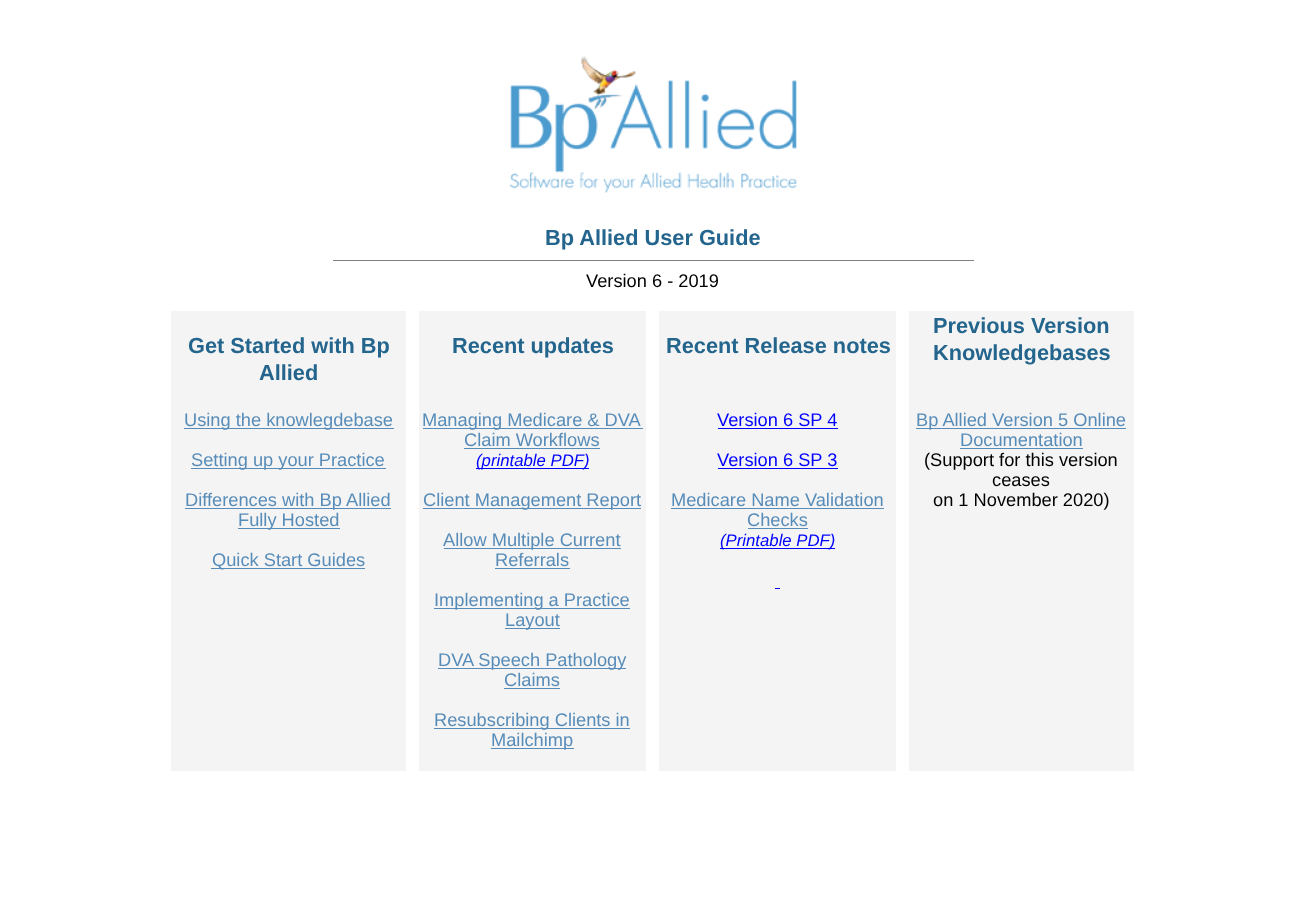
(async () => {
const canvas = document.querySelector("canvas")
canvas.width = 1305
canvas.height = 906
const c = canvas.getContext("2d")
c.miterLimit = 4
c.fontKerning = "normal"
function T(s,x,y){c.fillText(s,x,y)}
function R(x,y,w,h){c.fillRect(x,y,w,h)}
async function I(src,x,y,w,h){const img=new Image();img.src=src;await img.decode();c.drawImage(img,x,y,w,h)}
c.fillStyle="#fff"
R(0,0,1305,906)
await I("1.png",509,56,288,137)
c.font="bold 21.75px Liberation Sans"
c.fillStyle="#24658d"
T("Bp Allied User Guide",545,245)
c.fillStyle="#808080"
R(333,260,641,1)
c.font="18.25px Liberation Sans"
c.fillStyle="#000"
T("Version 6 - 2019",586,287)
c.fillStyle="#f4f4f4"
R(171,311,235,460)
c.font="bold 21.75px Liberation Sans"
c.fillStyle="#24658d"
T("Get Started with Bp",188,353)
T("Allied",259,380)
c.fillStyle="#f4f4f4"
R(419,311,227,460)
c.fillStyle="#24658d"
T("Recent updates",452,353)
c.fillStyle="#f4f4f4"
R(659,311,237,460)
c.fillStyle="#24658d"
T("Recent Release notes",666,353)
c.fillStyle="#f4f4f4"
R(909,311,225,460)
c.fillStyle="#24658d"
T("Previous Version",933,333)
T("Knowledgebases",933,360)
c.fillStyle="#578cb9"
R(184,428,210,1)
c.font="18.25px Liberation Sans"
T("Using the knowlegdebase",184,426)
R(191,468,195,1)
T("Setting up your Practice",191,466)
R(185,508,206,1)
T("Differences with Bp Allied",185,506)
R(238,528,102,1)
T("Fully Hosted",238,526)
R(211,568,154,1)
T("Quick Start Guides",212,566)
R(423,428,220,1)
T("Managing Medicare & DVA",422,426)
T("Claim Workflows",464,446)
R(464,448,136,1)
c.fillStyle="#00f"
R(476,468,113,1)
c.font="italic 16.75px Liberation Sans"
T("(printable PDF)",476,466)
c.fillStyle="#578cb9"
R(423,508,218,1)
c.font="18.25px Liberation Sans"
T("Client Management Report",423,506)
R(444,548,177,1)
T("Allow Multiple Current",443,546)
T("Referrals",495,566)
R(495,568,75,1)
R(434,608,196,1)
T("Implementing a Practice",434,606)
R(505,628,55,1)
T("Layout",505,626)
R(438,668,188,1)
T("DVA Speech Pathology",438,666)
T("Claims",504,686)
R(504,688,56,1)
R(434,728,196,1)
T("Resubscribing Clients in",434,726)
R(491,748,83,1)
T("Mailchimp",491,746)
c.fillStyle="#00f"
T("Version 6 SP 4",717,426)
R(718,428,120,1)
T("Version 6 SP 3",717,466)
R(718,468,120,1)
c.fillStyle="#578cb9"
T("Medicare Name Validation",671,506)
R(671,508,213,1)
T("Checks",747,526)
R(748,528,60,1)
c.fillStyle="#00f"
R(720,548,115,1)
c.font="italic 16.75px Liberation Sans"
T("(Printable PDF)",720,546)
R(775,588,5,1)
c.fillStyle="#578cb9"
R(916,428,210,1)
c.font="18.25px Liberation Sans"
T("Bp Allied Version 5 Online",916,426)
T("Documentation",960,446)
R(960,448,123,1)
c.fillStyle="#000"
T("(Support for this version",924,466)
T("ceases",992,486)
T("on 1 November 2020)",933,506)
})()
